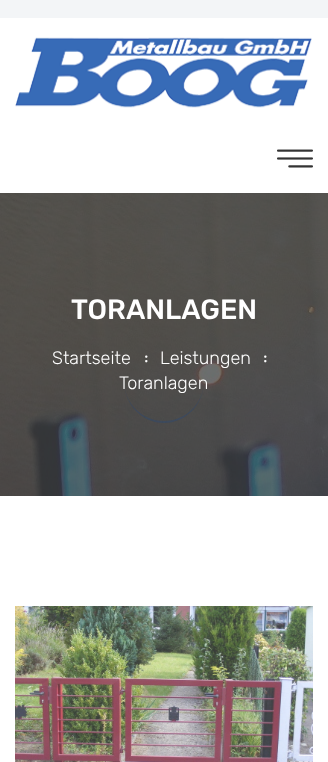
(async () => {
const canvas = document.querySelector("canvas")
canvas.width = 328
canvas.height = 762
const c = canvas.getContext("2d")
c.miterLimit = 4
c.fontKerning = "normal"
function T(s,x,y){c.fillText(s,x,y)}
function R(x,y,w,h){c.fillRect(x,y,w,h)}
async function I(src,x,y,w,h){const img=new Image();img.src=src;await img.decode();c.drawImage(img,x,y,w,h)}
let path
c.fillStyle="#fff"
R(0,0,328,762)
c.fillStyle="#f3f5f7"
R(0,0,328,18)
await I("1.png",15,37,297,71)
await I("2.png",277,149,36,19)
await I("3.png",0,193,328,303)
c.font="500 28px Rubik"
c.fillStyle="#fff"
T("TORANLAGEN",71,319)
c.font="300 18px Rubik"
T("Startseite",52,364)
c.font="bold 14px Liberation Serif"
T(":",144,362)
c.font="300 18px Rubik"
T("Leistungen",160,364)
c.font="bold 14px Liberation Serif"
T(":",263,362)
c.font="300 18px Rubik"
T("Toranlagen",119,389)
c.fillStyle="#0546a533"
path = new Path2D("M124 381c0 22 18 40 40 40c22 0 40-18 40-40c0 23-18 42-40 42c-22 0-40-19-40-42")
c.fill(path)
await I("4.png",15,606,298,156)
})()
